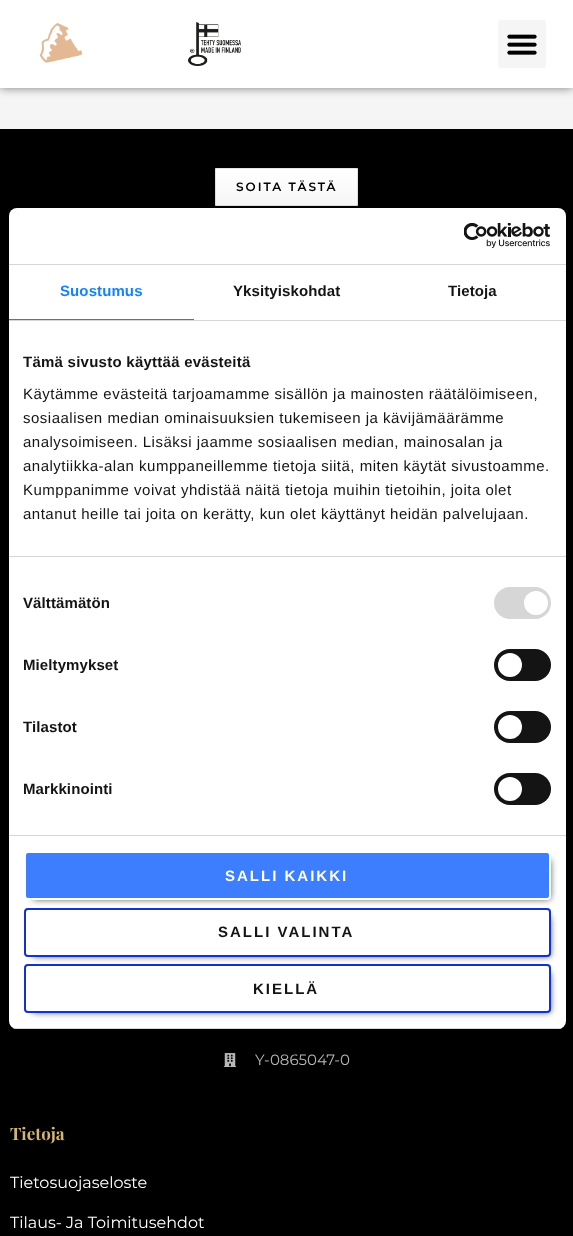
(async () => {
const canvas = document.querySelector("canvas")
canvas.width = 573
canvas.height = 1236
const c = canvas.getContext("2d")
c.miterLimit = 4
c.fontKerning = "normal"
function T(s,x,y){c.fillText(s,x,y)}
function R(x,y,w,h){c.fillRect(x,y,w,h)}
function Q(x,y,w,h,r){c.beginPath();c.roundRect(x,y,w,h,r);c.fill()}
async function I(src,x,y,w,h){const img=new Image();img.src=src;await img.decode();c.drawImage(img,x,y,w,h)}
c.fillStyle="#f5f5f5"
R(0,0,573,1236)
c.fillStyle="#00000080"
c.filter="blur(5px)"
c.beginPath()
c.rect(0,0,573,88)
c.fill()
c.filter="none"
c.fillStyle="#fff"
R(0,0,573,88)
await I("1.png",39,23,43,40)
await I("2.png",188,22,53,44)
c.fillStyle="#f5f5f5"
Q(498,20,48,48,3)
await I("3.png",507,34,30,21)
c.fillStyle="#000"
R(0,129,573,1107)
c.fillStyle="#fff"
c.beginPath()
c.rect(215.5,168.5,142,37)
c.fill()
c.strokeStyle="#e5e5e5"
c.stroke()
c.letterSpacing="2px"
c.font="600 12px Montserrat"
c.fillStyle="#000"
T("SOITA TÄSTÄ",236,191)
await I("4.png",223,1053,14,14)
c.letterSpacing="0px"
c.font="15px Montserrat"
c.fillStyle="#d7d7d9"
T("Y-0865047-0",255,1065)
c.font="bold 17px Playfair Display"
c.fillStyle="#d3b574"
T("Tietoja",10,1140)
c.font="16px Montserrat"
c.fillStyle="#fff"
T("Tietosuojaseloste",10,1188)
T("Tilaus- Ja Toimitusehdot",10,1228)
c.fillStyle="#0000004d"
c.filter="blur(34px)"
c.beginPath()
c.roundRect(9,240,557,821,8)
c.fill()
c.filter="none"
c.fillStyle="#fff"
Q(9,208,557,821,8)
c.fillStyle="#d6d6d6"
R(9,264,557,1)
await I("5.png",464,223,87,25)
R(9,320,557,1)
c.fillStyle="#1583f9"
R(9,319,185,1)
c.letterSpacing="0.1px"
c.font="bold 15px Liberation Sans"
T("Suostumus",60,296)
c.fillStyle="#141414"
T("Yksityiskohdat",233,296)
T("Tietoja",448,296)
c.fillStyle="#d6d6d6"
R(9,556,557,1)
c.letterSpacing="0.25px"
c.fillStyle="#141414"
T("Tämä sivusto käyttää evästeitä",23,367)
c.letterSpacing="0.5px"
c.font="15px Liberation Sans"
T("Käytämme evästeitä tarjoamamme sisällön ja mainosten räätälöimiseen,",23,399)
T("sosiaalisen median ominaisuuksien tukemiseen ja kävijämäärämme",23,423)
T("analysoimiseen. Lisäksi jaamme sosiaalisen median, mainosalan ja",23,447)
T("analytiikka-alan kumppaneillemme tietoja siitä, miten käytät sivustoamme.",23,471)
T("Kumppanimme voivat yhdistää näitä tietoja muihin tietoihin, joita olet",23,495)
T("antanut heille tai joita on kerätty, kun olet käyttänyt heidän palvelujaan.",23,519)
c.fillStyle="#d6d6d6"
R(9,835,557,1)
c.letterSpacing="0.1px"
c.font="bold 15px Liberation Sans"
c.fillStyle="#141414"
T("Välttämätön",23,608)
c.fillStyle="#d6d6d6"
Q(494,587,57,32,16)
c.fillStyle="#fff"
c.beginPath()
c.arc(536,603,12,0,7)
c.fill()
c.fillStyle="#141414"
T("Mieltymykset",23,670)
Q(494,649,57,32,16)
c.fillStyle="#fff"
c.beginPath()
c.arc(510,665,12,0,7)
c.fill()
c.fillStyle="#141414"
T("Tilastot",23,732)
Q(494,711,57,32,16)
c.fillStyle="#fff"
c.beginPath()
c.arc(510,727,12,0,7)
c.fill()
c.fillStyle="#141414"
T("Markkinointi",23,794)
Q(494,773,57,32,16)
c.fillStyle="#fff"
c.beginPath()
c.arc(510,789,12,0,7)
c.fill()
c.save()
c.beginPath()
c.roundRect(9,208,557,821,8)
c.clip()
c.fillStyle="#d6d6d6"
R(9,1028,557,1)
c.restore()
c.fillStyle="#000000c4"
c.filter="blur(3.5px)"
c.beginPath()
c.rect(33,860,517,39)
c.fill()
c.filter="none"
c.fillStyle="#3d7eff"
c.beginPath()
c.roundRect(25,852,525,47,3)
c.fill()
c.strokeStyle="#fff"
c.lineWidth=2
c.stroke()
c.letterSpacing="2px"
c.fillStyle="#fff"
T("SALLI KAIKKI",225,881)
c.fillStyle="#000000c4"
c.filter="blur(3.5px)"
c.beginPath()
c.rect(33,917,517,39)
c.fill()
c.filter="none"
c.fillStyle="#fff"
c.beginPath()
c.roundRect(25,909,525,47,3)
c.fill()
c.strokeStyle="#1032cf"
c.stroke()
c.fillStyle="#141414"
T("SALLI VALINTA",218,937)
c.fillStyle="#000000c4"
c.filter="blur(3.5px)"
c.beginPath()
c.rect(33,973,517,39)
c.fill()
c.filter="none"
c.fillStyle="#fff"
c.beginPath()
c.roundRect(25,965,525,47,3)
c.fill()
c.stroke()
c.fillStyle="#141414"
T("KIELLÄ",253,994)
})()
